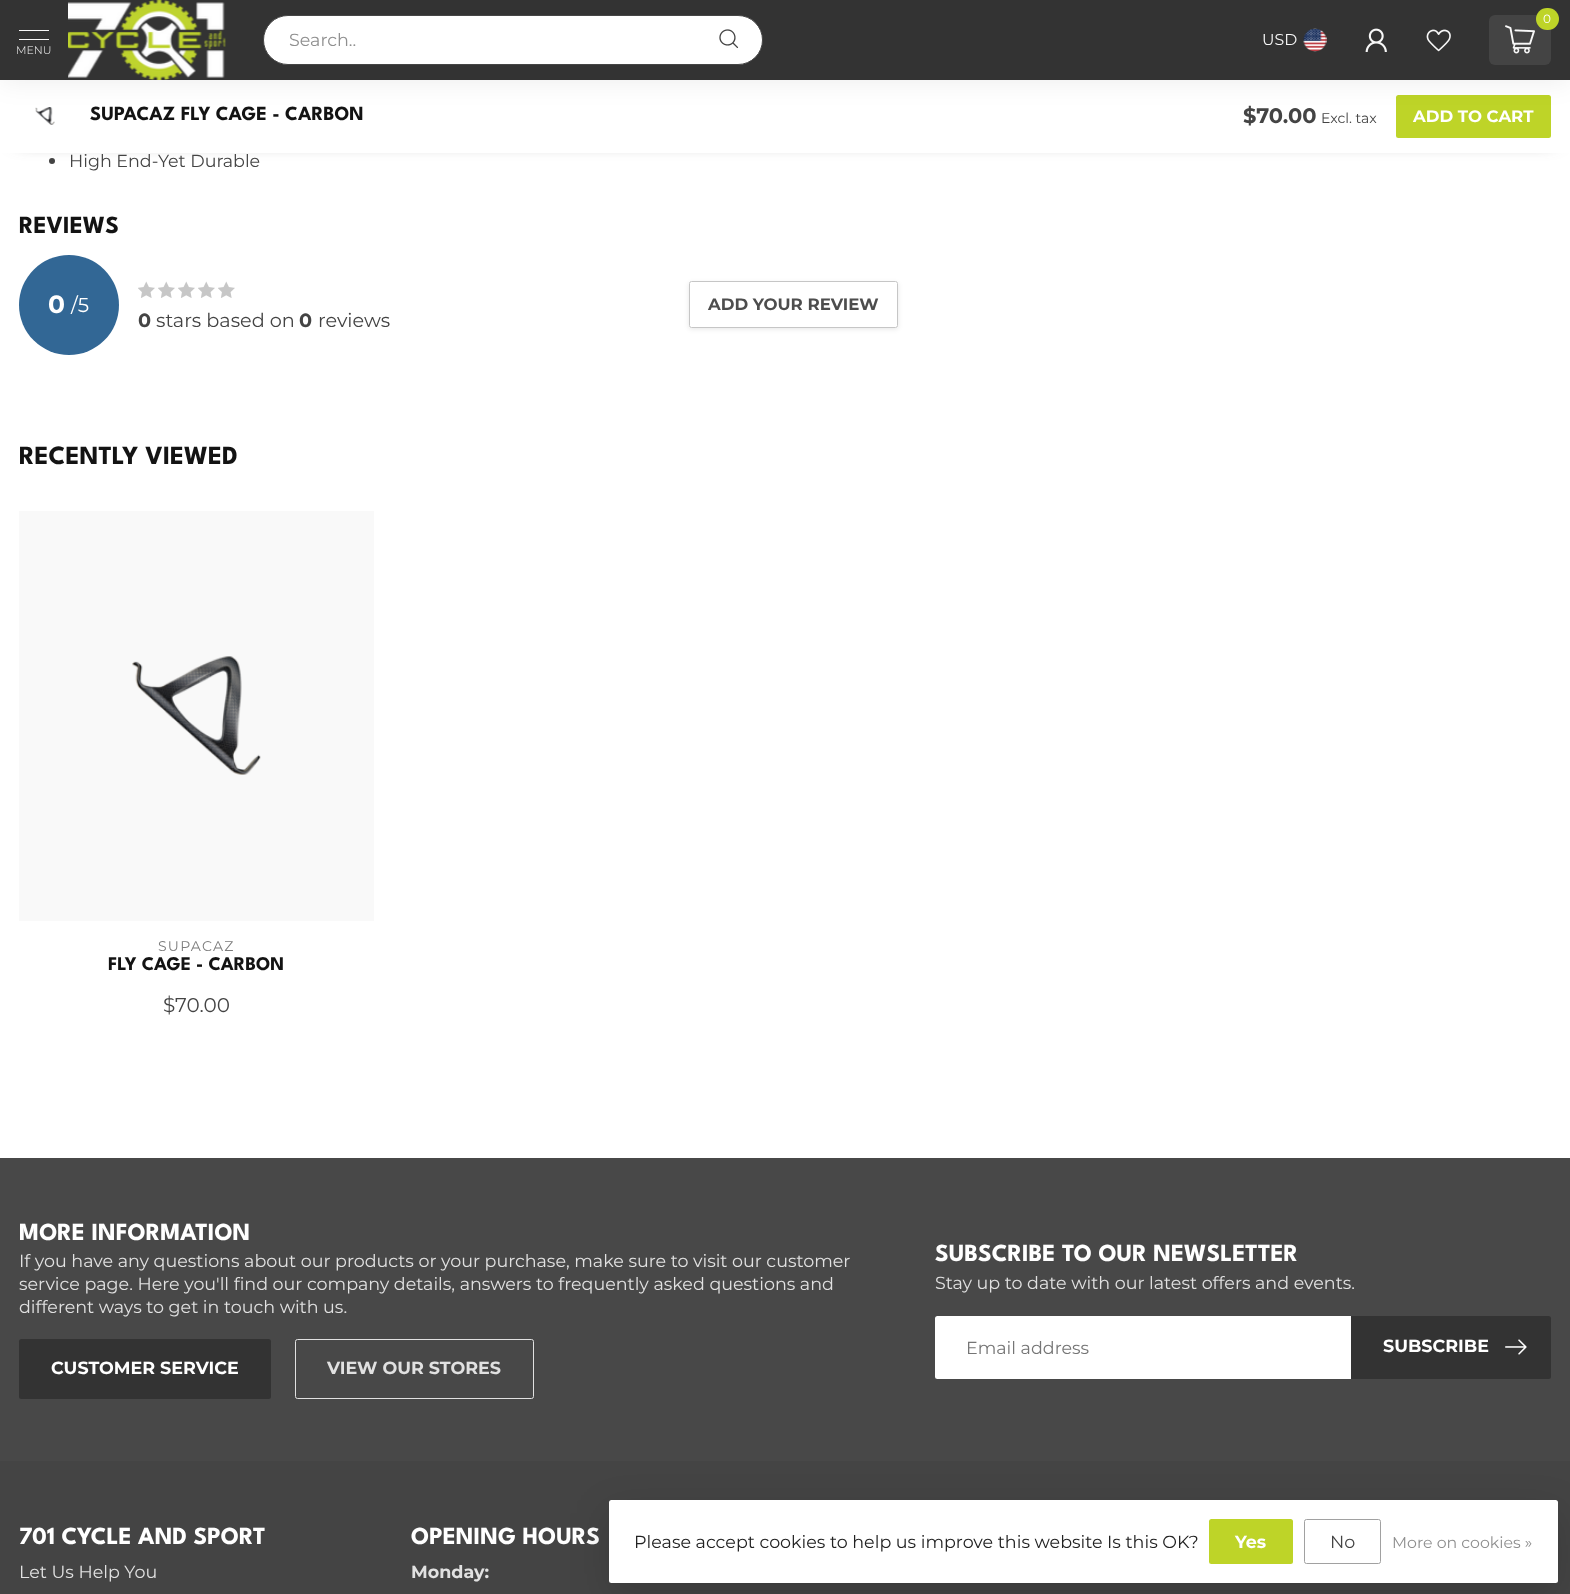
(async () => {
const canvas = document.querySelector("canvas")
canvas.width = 1570
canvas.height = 1594
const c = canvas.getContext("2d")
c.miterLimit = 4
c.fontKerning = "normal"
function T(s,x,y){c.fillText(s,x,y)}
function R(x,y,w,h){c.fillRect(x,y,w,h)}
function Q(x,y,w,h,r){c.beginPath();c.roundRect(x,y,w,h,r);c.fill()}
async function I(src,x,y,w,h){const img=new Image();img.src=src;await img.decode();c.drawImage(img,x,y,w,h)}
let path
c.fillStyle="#fff"
R(0,0,1570,1594)
c.fillStyle="#444"
c.beginPath()
c.arc(52,161,3,0,7)
c.fill()
c.filter="blur(9.5px)"
c.beginPath()
c.rect(18,100,1535,38)
c.fill()
c.filter="none"
c.fillStyle="#fff"
R(0,80,1570,73)
await I("7.png",35,107,20,18)
c.fillStyle="#bed428"
Q(1396,95,155,43,2.5)
c.fillStyle="#00000014"
c.filter="blur(14px)"
c.beginPath()
c.rect(0,-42,1570,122)
c.fill()
c.filter="none"
c.fillStyle="#333"
R(0,0,1570,80)
await I("1.png",68,0,158,80)
c.fillStyle="#fff"
c.beginPath()
c.roundRect(263.5,15.5,499,49,24.5)
c.fill()
c.strokeStyle="#464646"
c.stroke()
c.font="17.5px Montserrat"
c.fillStyle="#8f8f8f"
T("Search..",289,46)
await I("2.png",719,29,20,20)
c.fillStyle="#f8f8f8"
R(19,30,30,1)
R(19,39,30,1)
c.font="300 11px Montserrat"
T("MENU",16,54)
c.fillStyle="#444"
Q(1489,15,62,50,6)
c.fillStyle="#bed428"
Q(1536,8,23,22,11)
c.font="12px Montserrat"
c.fillStyle="#fff"
T("0",1543,23)
await I("3.png",1505,25,30,29)
c.font="15.75px Montserrat"
c.fillStyle="#f8f8f8"
T("USD",1262,45)
await I("4.png",1303,28,24,24)
await I("5.png",1365,28,22,24)
await I("6.png",1426,29,25,23)
c.font="bold 20px League Spartan"
c.fillStyle="#131313"
T("SUPACAZ FLY CAGE - CARBON",90,120)
c.font="bold 21px Montserrat"
c.fillStyle="#444"
T("$70.00",1243,123)
c.font="14px Montserrat"
T("Excl. tax",1321,123)
c.font="bold 16.6px Montserrat"
c.fillStyle="#fff"
T("ADD TO CART",1413,122)
c.font="17.5px Montserrat"
c.fillStyle="#444"
T("High End-Yet Durable",69,167)
c.font="bold 24.5px League Spartan"
c.fillStyle="#131313"
T("REVIEWS",19,233)
c.fillStyle="#326795"
c.beginPath()
c.arc(69,305,50,0,7)
c.fill()
c.font="bold 25px Montserrat"
c.fillStyle="#fff"
T("0",48,313)
c.font="20px Montserrat"
T("/5",71,312)
c.save()
path = new Path2D("M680 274h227v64h-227zm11.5 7h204c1.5 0 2.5 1 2.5 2.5v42c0 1.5-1 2.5-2.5 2.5h-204c-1.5 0-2.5-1-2.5-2.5v-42c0-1.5 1-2.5 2.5-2.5z")
c.clip(path,"evenodd")
c.fillStyle="#0000001a"
c.filter="blur(2.5px)"
c.beginPath()
c.roundRect(689,283,209,46,2.5)
c.fill()
c.filter="none"
c.restore()
c.beginPath()
c.roundRect(689.5,281.5,208,46,2)
c.strokeStyle="#c6c6c6"
c.stroke()
c.font="bold 16.6px Montserrat"
c.fillStyle="#4d4d4d"
T("ADD YOUR REVIEW",708,310)
await I("8.png",138,281,17,17)
await I("8.png",158,281,17,17)
await I("8.png",178,281,17,17)
await I("8.png",198,281,17,17)
await I("8.png",218,281,17,17)
c.font="bold 19.25px Montserrat"
c.fillStyle="#444"
T("0",138,327)
c.font="19.25px Montserrat"
T("stars based on",156,327)
c.font="bold 19.25px Montserrat"
T("0",299,327)
c.font="19.25px Montserrat"
T("reviews",318,327)
c.font="bold 26.25px League Spartan"
c.fillStyle="#131313"
T("RECENTLY VIEWED",19,464)
await I("9.png",132,656,129,119)
c.fillStyle="#9b9b9b0f"
R(19,511,355,410)
c.letterSpacing="1.25px"
c.font="14px Montserrat"
c.fillStyle="#7c7c7c"
T("SUPACAZ",158,951)
c.letterSpacing="0px"
c.font="bold 19.25px League Spartan"
c.fillStyle="#131313"
T("FLY CAGE - CARBON",108,970)
c.font="20px Montserrat"
c.fillStyle="#444"
T("$70.00",163,1012)
R(0,1461,1570,133)
c.fillStyle="#484848"
R(0,1158,1570,303)
c.font="bold 24.5px League Spartan"
c.fillStyle="#fff"
T("MORE INFORMATION",19,1240)
c.font="17.5px Montserrat"
c.fillStyle="#e1e1e1"
T("If you have any questions about our products or your purchase, make sure to visit our customer",19,1267)
T("service page. Here you'll find our company details, answers to frequently asked questions and",19,1290)
T("different ways to get in touch with us.",19,1313)
c.fillStyle="#333"
Q(19,1339,252,60,2.5)
c.font="bold 17.5px Montserrat"
c.fillStyle="#fff"
T("CUSTOMER SERVICE",51,1374)
c.beginPath()
c.roundRect(295.5,1339.5,238,59,2)
c.strokeStyle="#e1e1e1"
c.stroke()
c.fillStyle="#e1e1e1"
T("VIEW OUR STORES",327,1374)
c.font="bold 24.5px League Spartan"
c.fillStyle="#fff"
T("SUBSCRIBE TO OUR NEWSLETTER",935,1261)
c.font="17.5px Montserrat"
c.fillStyle="#e1e1e1"
T("Stay up to date with our latest offers and events.",935,1289)
c.fillStyle="#fff"
c.beginPath()
c.roundRect(935,1316,416,63,[2.5,0,0,2.5])
c.fill()
c.fillStyle="#757575"
T("Email address",966,1354)
c.fillStyle="#333"
c.beginPath()
c.roundRect(1351,1316,200,63,[0,2.5,2.5,0])
c.fill()
c.font="bold 17.5px Montserrat"
c.fillStyle="#fff"
T("SUBSCRIBE",1383,1352)
await I("10.png",1505,1339,22,16)
c.font="bold 24.5px League Spartan"
T("701 CYCLE AND SPORT",19,1544)
c.font="17.5px Montserrat"
c.fillStyle="#e1e1e1"
T("Let Us Help You",19,1578)
c.font="bold 24.5px League Spartan"
c.fillStyle="#fff"
T("OPENING HOURS",411,1544)
c.font="bold 17.5px Montserrat"
c.fillStyle="#e1e1e1"
T("Monday:",411,1578)
c.fillStyle="#00000026"
c.filter="blur(19px)"
c.beginPath()
c.roundRect(609,1513,949,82,2.5)
c.fill()
c.filter="none"
c.fillStyle="#fff"
Q(609,1500,949,83,2.5)
c.font="17.5px Montserrat"
c.fillStyle="#222"
T("Please accept cookies to help us improve this website Is this OK?",634,1548)
c.fillStyle="#bed428"
Q(1209,1519,84,45,2.5)
c.font="bold 17.5px Montserrat"
c.fillStyle="#fff"
T("Yes",1235,1548)
c.beginPath()
c.roundRect(1304.5,1519.5,76,44,2)
c.strokeStyle="#a1a1a1"
c.stroke()
c.font="17.5px Montserrat"
c.fillStyle="#444"
T("No",1330,1548)
c.font="15.75px Montserrat"
c.fillStyle="#8f8f8f"
T("More on cookies »",1392,1548)
})()
